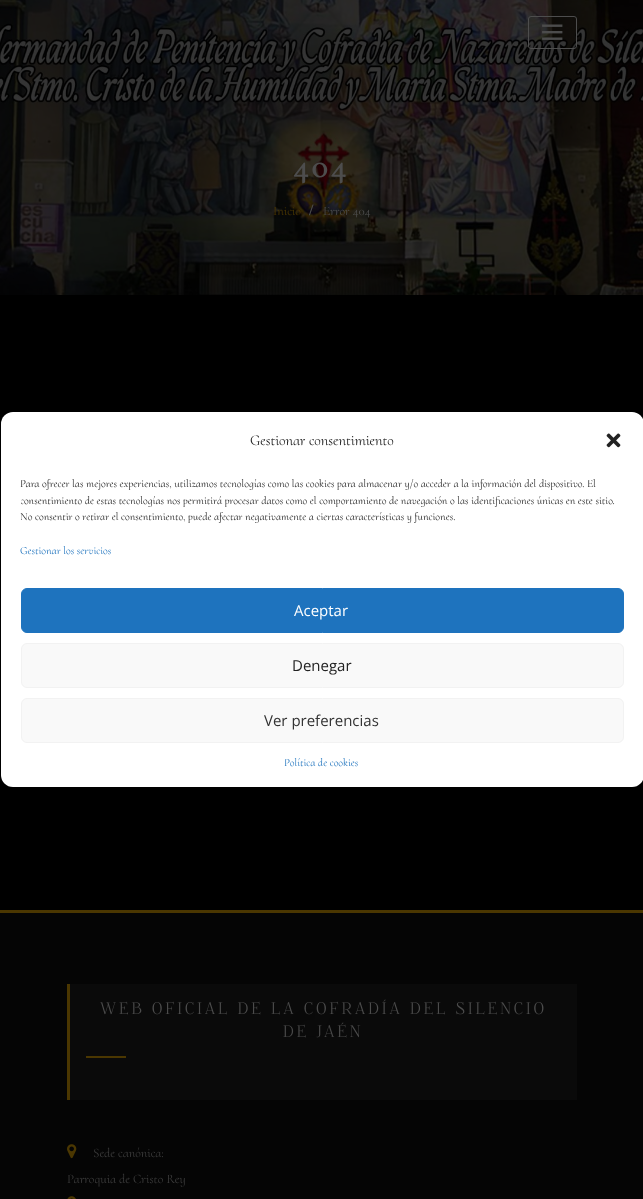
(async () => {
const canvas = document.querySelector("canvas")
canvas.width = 643
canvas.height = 1199
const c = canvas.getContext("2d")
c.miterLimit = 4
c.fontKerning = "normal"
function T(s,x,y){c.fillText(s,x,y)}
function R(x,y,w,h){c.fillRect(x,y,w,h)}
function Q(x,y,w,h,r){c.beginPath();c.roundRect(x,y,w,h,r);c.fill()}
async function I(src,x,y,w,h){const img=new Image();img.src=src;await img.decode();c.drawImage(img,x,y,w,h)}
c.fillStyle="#000"
R(0,0,643,1199)
await I("2.png",0,0,643,295)
c.beginPath()
c.roundRect(528.5,16.5,48,32,2.5)
c.strokeStyle="#4d4d4d"
c.stroke()
await I("1.png",542,24,21,16)
c.letterSpacing="3px"
c.font="bold 34px Cormorant Upright"
c.fillStyle="#4d4d4d"
T("404",293,177)
c.letterSpacing="0px"
c.font="13px Cormorant Upright"
c.fillStyle="#4b3701"
T("Inicio",273,215)
c.letterSpacing="1px"
c.font="bold 16px Liberation Serif"
c.fillStyle="#4d4d4d"
T("/",309,215)
c.letterSpacing="0px"
c.font="13px Cormorant Upright"
T("Error 404",323,215)
c.fillStyle="#050505"
R(0,913,643,286)
c.fillStyle="#4b3701"
R(0,910,643,3)
c.fillStyle="#0a0a0a"
R(70,984,507,116)
c.fillStyle="#4b3701"
R(67,984,3,116)
await I("3.png",100,999,444,16)
await I("4.png",283,1022,78,16)
R(86,1056,40,2)
await I("5.png",287,1009,65,28)
await I("6.png",67,1144,10,15)
c.fillStyle="#3d3d3d"
T("Sede canónica:",93,1157)
T("Parroquia de Cristo Rey",67,1183)
await I("7.png",67,1196,9,3)
c.fillStyle="#fff"
Q(1,412,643,375,12)
c.font="15px Cormorant Upright"
c.fillStyle="#222"
T("Gestionar consentimiento",250,445)
await I("8.png",606,433,15,15)
c.font="11px Cormorant Upright"
T("Para ofrecer las mejores experiencias, utilizamos tecnologías como las cookies para almacenar y/o acceder a la información del dispositivo. El",20,487)
c.save()
c.beginPath()
c.rect(21,476,603,54)
c.clip()
T("consentimiento de estas tecnologías nos permitirá procesar datos como el comportamiento de navegación o las identificaciones únicas en este sitio.",20,504)
c.restore()
T("No consentir o retirar el consentimiento, puede afectar negativamente a ciertas características y funciones.",20,520)
c.fillStyle="#1e73be"
T("Gestionar los servicios",20,554)
c.beginPath()
c.roundRect(21.5,588.5,602,44,5.5)
c.fill()
c.strokeStyle="#1e73be"
c.stroke()
c.font="15px Open Sans"
c.fillStyle="#fff"
T("Aceptar",294,616)
c.fillStyle="#f9f9f9"
c.beginPath()
c.roundRect(21.5,643.5,602,44,5.5)
c.fill()
c.strokeStyle="#f2f2f2"
c.stroke()
c.fillStyle="#222"
T("Denegar",292,671)
c.fillStyle="#f9f9f9"
c.beginPath()
c.roundRect(21.5,698.5,602,44,5.5)
c.fill()
c.stroke()
c.fillStyle="#333"
T("Ver preferencias",264,726)
c.font="11px Cormorant Upright"
c.fillStyle="#1e73be"
T("Política de cookies",284,766)
})()
